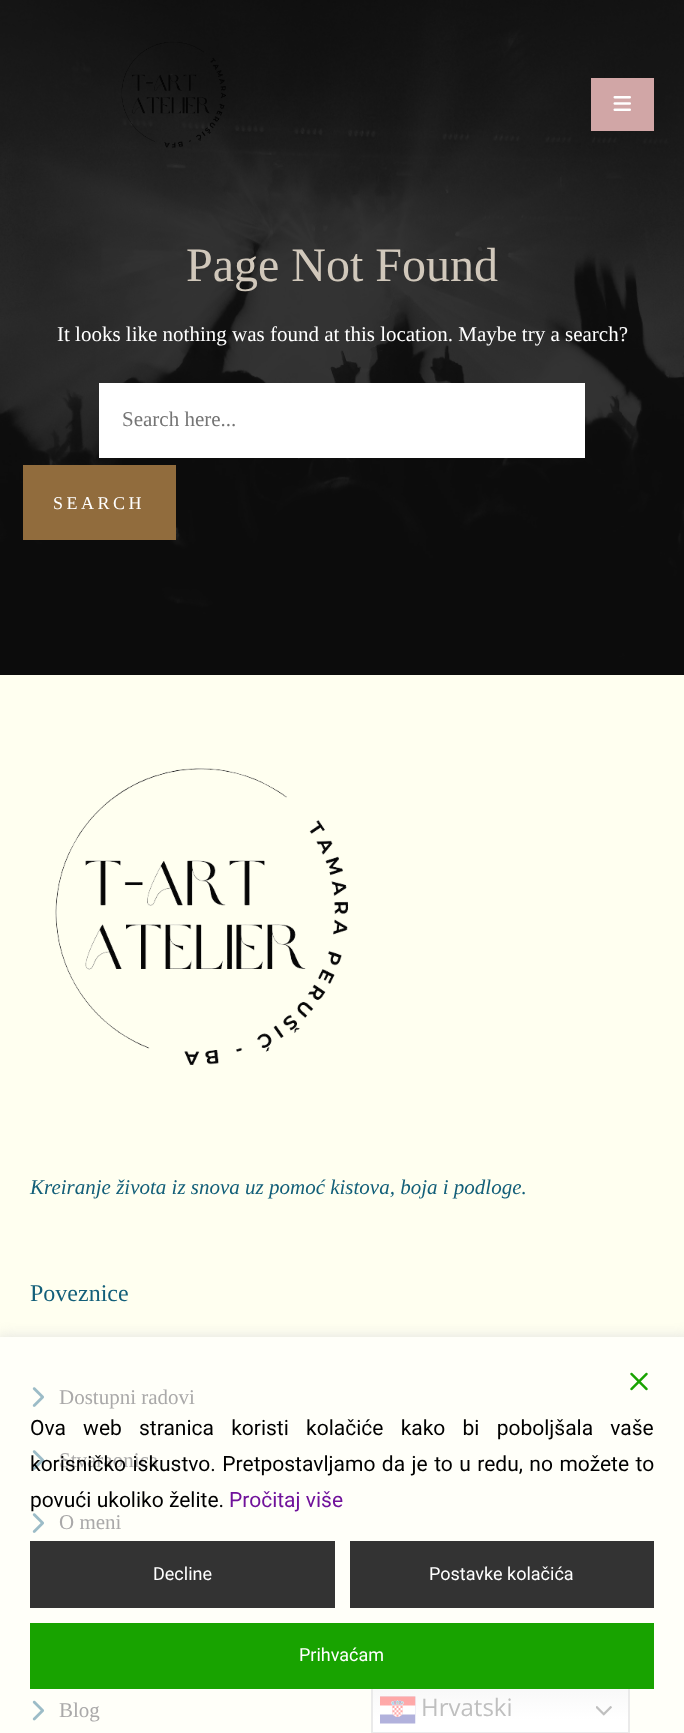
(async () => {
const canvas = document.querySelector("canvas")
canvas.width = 684
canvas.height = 1733
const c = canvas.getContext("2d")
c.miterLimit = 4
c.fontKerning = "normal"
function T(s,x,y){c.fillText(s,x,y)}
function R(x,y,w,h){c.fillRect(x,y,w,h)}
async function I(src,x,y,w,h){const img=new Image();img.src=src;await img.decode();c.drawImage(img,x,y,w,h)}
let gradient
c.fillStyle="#fff"
R(0,0,684,1733)
await I("3.png",0,0,684,675)
await I("1.png",121,42,105,106)
c.fillStyle="#d1a6a6"
R(591,78,63,53)
await I("2.png",613,96,18,15)
c.font="48px Liberation Serif"
c.fillStyle="#d1c8bb"
T("Page Not Found",186,281)
c.font="21px Liberation Serif"
c.fillStyle="#fff"
T("It looks like nothing was found at this location. Maybe try a search?",57,341)
R(99,383,486,75)
c.fillStyle="#757575"
T("Search here...",122,426)
c.fillStyle="#916c3d"
R(23,465,153,75)
c.letterSpacing="3.5px"
c.font="18px Liberation Serif"
c.fillStyle="#fff"
T("SEARCH",53,509)
c.fillStyle="#fffff0"
R(0,675,684,662)
c.fillStyle="#fffff9"
R(0,1337,684,396)
await I("4.png",55,768,293,297)
c.letterSpacing="0px"
c.font="italic 21px Liberation Serif"
c.fillStyle="#135f79"
T("Kreiranje života iz snova uz pomoć kistova, boja i podloge.",30,1194)
c.font="24px Liberation Serif"
T("Poveznice",30,1301)
await I("5.png",32,1387,12,20)
c.font="21px Liberation Serif"
c.fillStyle="#aaa9a9"
T("Dostupni radovi",59,1404)
await I("5.png",32,1450,12,20)
T("Stvaraonica",59,1467)
await I("5.png",32,1513,12,20)
T("O meni",59,1529)
await I("6.png",32,1700,12,21)
T("Blog",59,1717)
gradient = c.createLinearGradient(500,1686,500,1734)
gradient.addColorStop(0,"#f8f8f8")
gradient.addColorStop(.7,"#fff")
c.fillStyle = gradient
R(373,1689,255,43)
c.strokeStyle="#eaeaea"
c.lineWidth=2
c.strokeRect(372,1687,257,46)
await I("8.png",380,1696,36,28)
await I("9.png",596,1706,16,10)
c.save()
c.beginPath()
c.rect(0,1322,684,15)
c.clip()
c.fillStyle="#ddd"
c.filter="blur(8px)"
c.beginPath()
c.rect(-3,1338,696,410)
c.fill()
c.filter="none"
c.restore()
await I("7.png",630,1372,18,19)
c.wordSpacing="12px"
c.font="21px Roboto"
c.fillStyle="#000"
T("Ova web stranica koristi kolačiće kako bi poboljšala vaše",30,1435)
c.wordSpacing="1.25px"
T("korisničko iskustvo. Pretpostavljamo da je to u redu, no možete to",30,1471)
c.wordSpacing="0px"
T("povući ukoliko želite.",30,1507)
c.fillStyle="#70129b"
T("Pročitaj više",229,1507)
c.fillStyle="#333"
R(30,1541,305,67)
c.font="18px Roboto"
c.fillStyle="#fff"
T("Decline",153,1580)
c.fillStyle="#333"
R(350,1541,304,67)
c.fillStyle="#fff"
T("Postavke kolačića",429,1580)
c.fillStyle="#18a300"
R(30,1623,624,66)
c.fillStyle="#fff"
T("Prihvaćam",299,1661)
c.font="24px Open Sans"
c.fillStyle="#bfbfbf"
T("Hrvatski",421,1716)
})()
